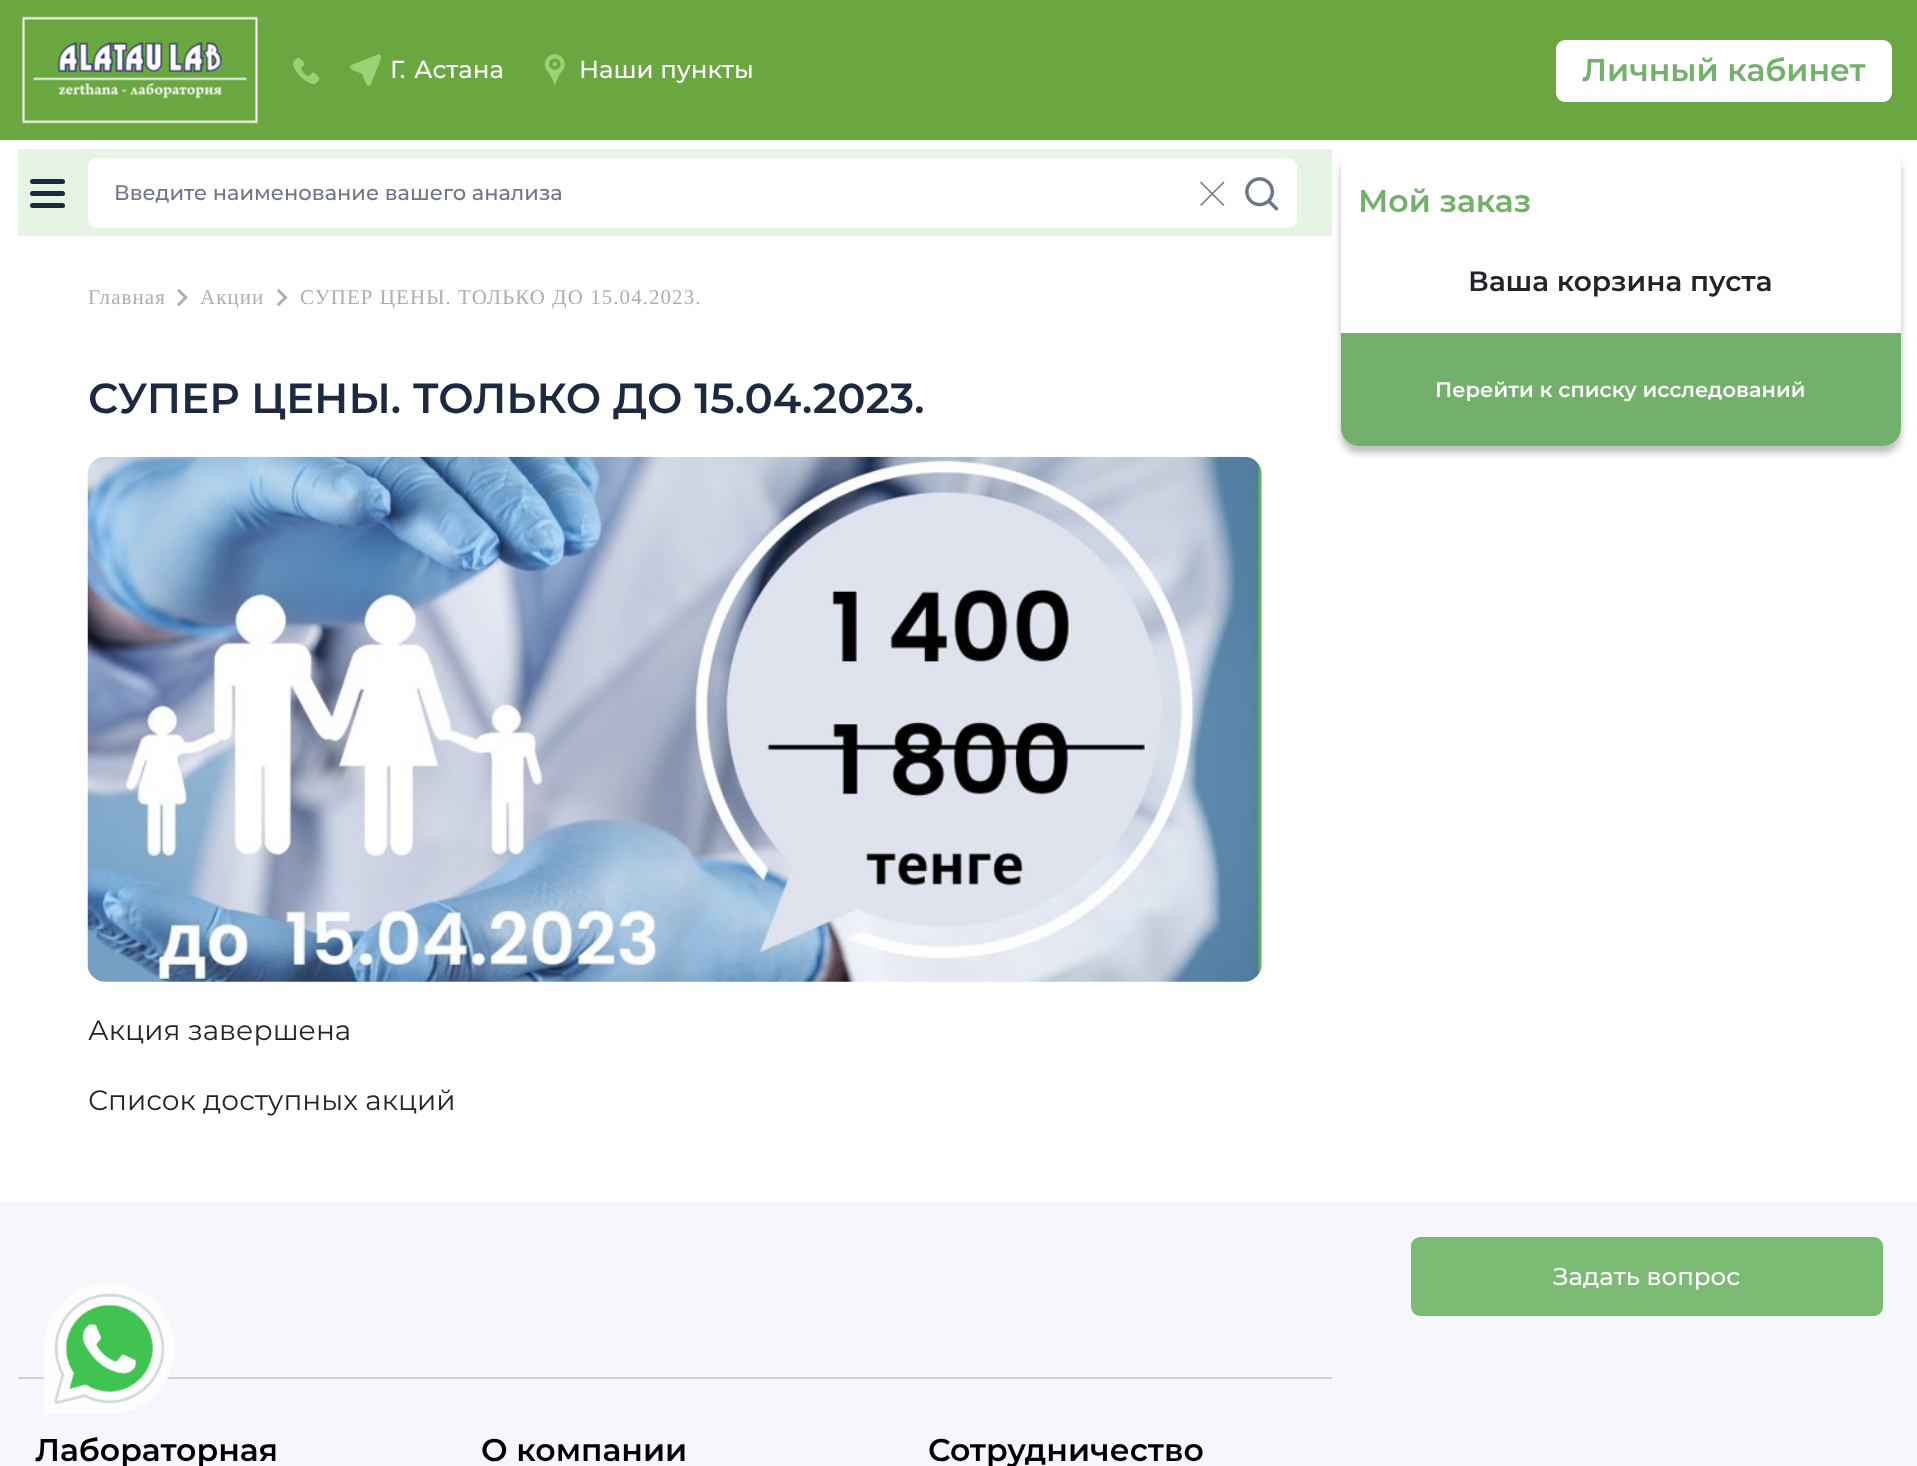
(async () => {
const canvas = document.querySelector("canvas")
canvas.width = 1917
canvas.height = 1466
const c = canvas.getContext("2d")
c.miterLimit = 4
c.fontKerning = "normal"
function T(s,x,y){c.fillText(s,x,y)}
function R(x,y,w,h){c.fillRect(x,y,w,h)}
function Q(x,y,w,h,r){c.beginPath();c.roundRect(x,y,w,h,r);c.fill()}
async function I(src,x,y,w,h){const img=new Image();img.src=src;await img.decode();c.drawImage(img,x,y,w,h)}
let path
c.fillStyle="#fff"
R(0,0,1917,1466)
c.fillStyle="#6ba741"
R(0,0,1917,140)
await I("1.png",22,16,236,108)
await I("2.png",293,58,27,26)
await I("3.png",350,54,32,32)
c.font="500 24.5px Montserrat"
c.fillStyle="#fff"
T("Г.",390,78)
T("Астана",414,78)
await I("4.png",544,54,21,32)
T("Наши пункты",579,78)
Q(1556,40,336,62,9)
c.font="600 31.5px Montserrat"
c.fillStyle="#73b06b"
T("Личный кабинет",1582,81)
c.fillStyle="#e5f4e3"
R(18,149,1314,87)
c.fillStyle="#1d293f"
Q(30,191,35,5,2.5)
Q(30,179,35,5,2.5)
Q(30,203,35,5,2.5)
c.fillStyle="#fff"
Q(88,158,1209,70,9)
c.font="500 21px Montserrat"
c.fillStyle="#6e7787"
T("Введите наименование вашего анализа",114,200)
path = new Path2D("M1224 182l-23.5 23.5m0-23.5l23.5 23.5")
c.strokeStyle="#6e7787"
c.lineWidth=1.5
c.stroke(path)
await I("5.png",1245,177,34,34)
c.fillStyle="#00000040"
c.filter="blur(3.5px)"
c.beginPath()
c.roundRect(1341,154,560,299,18)
c.fill()
c.filter="none"
c.fillStyle="#fff"
Q(1341,147,560,299,18)
c.font="600 31.5px Montserrat"
c.fillStyle="#73b06b"
T("Мой заказ",1358,212)
c.font="600 28px Montserrat"
c.fillStyle="#212529"
T("Ваша корзина пуста",1468,291)
c.fillStyle="#73b06b"
c.beginPath()
c.roundRect(1341,333,560,113,[0,0,18,18])
c.fill()
c.font="600 21px Montserrat"
c.fillStyle="#fff"
T("Перейти к списку исследований",1435,397)
c.letterSpacing="1.05px"
c.font="21px Liberation Serif"
c.fillStyle="#aeaeae"
T("Главная",88,304)
await I("6.png",177,289,11,17)
T("Акции",200,304)
await I("7.png",276,288,12,19)
T("СУПЕР ЦЕНЫ. ТОЛЬКО ДО 15.04.2023.",300,304)
c.letterSpacing="0px"
c.font="600 42px Montserrat"
c.fillStyle="#1d293f"
T("СУПЕР ЦЕНЫ. ТОЛЬКО ДО 15.04.2023.",88,413)
await I("8.png",87,456,1175,526)
c.font="28px Montserrat"
c.fillStyle="#212529"
T("Акция завершена",88,1040)
T("Список доступных акций",88,1110)
c.fillStyle="#f6f7fc"
R(0,1202,1917,264)
c.fillStyle="#7cbb74"
Q(1411,1237,472,79,9)
c.font="500 24.5px Montserrat"
c.fillStyle="#fff"
T("Задать вопрос",1553,1285)
c.fillStyle="#d0d0d0"
R(18,1377,1314,2)
c.font="600 31.5px Montserrat"
c.fillStyle="#000"
T("Лабораторная",35,1461)
T("О компании",481,1461)
T("Сотрудничество",928,1461)
await I("9.png",43,1283,132,131)
})()
